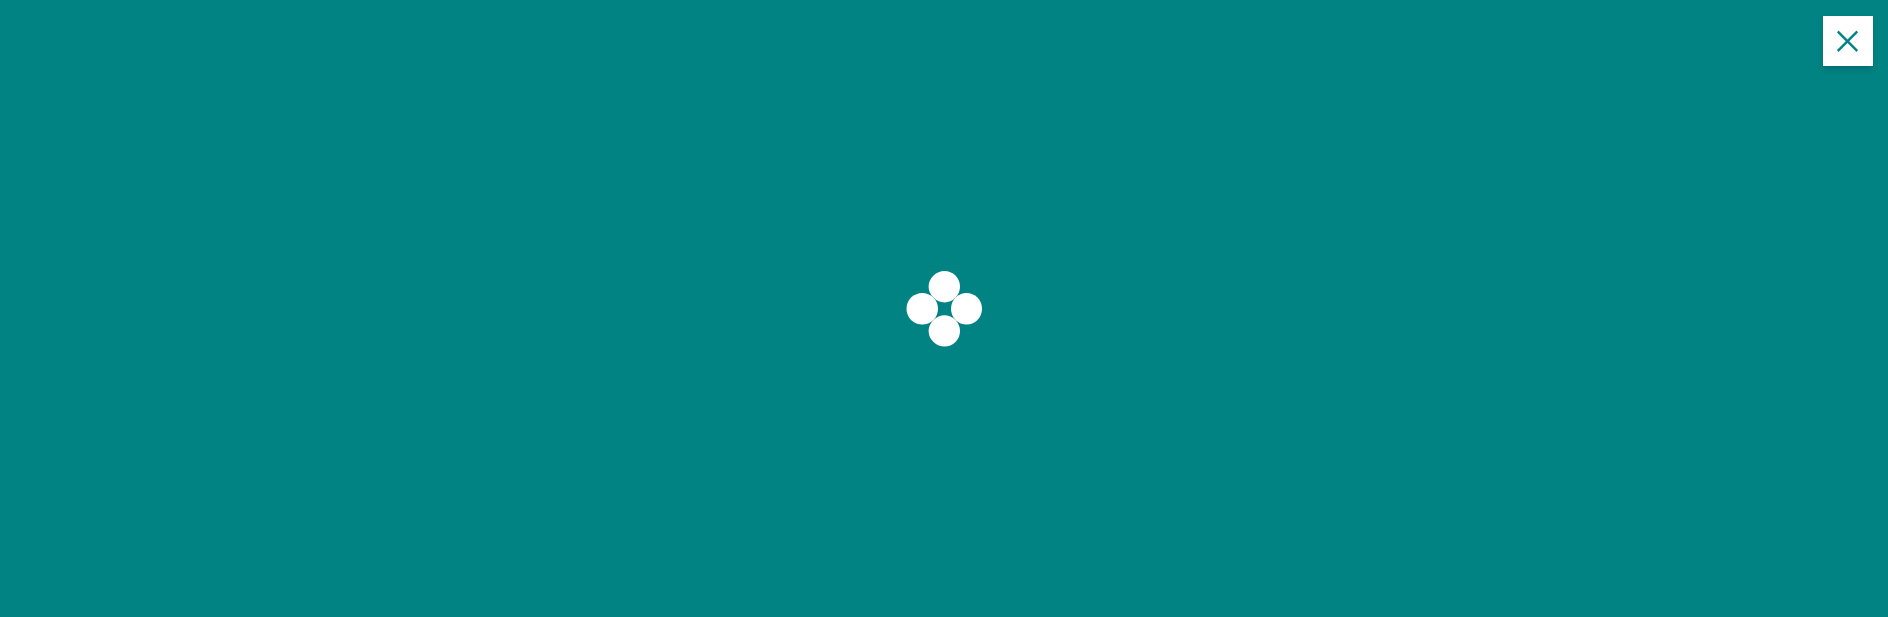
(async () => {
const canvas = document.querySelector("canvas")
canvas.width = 1888
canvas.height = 617
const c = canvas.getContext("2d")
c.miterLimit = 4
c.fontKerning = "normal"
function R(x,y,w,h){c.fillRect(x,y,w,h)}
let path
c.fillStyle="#028383"
R(0,0,1888,617)
c.fillStyle="#070a1933"
c.filter="blur(3px)"
c.beginPath()
c.rect(1824,21,47,48)
c.fill()
c.filter="none"
c.fillStyle="#fff"
R(1823,16,50,50)
c.fillStyle="#028383"
path = new Path2D("M1837 50l19.5-19.5l1.5 2l-19.5 19.5z")
c.fill(path)
path = new Path2D("M1856.5 52l-19.5-19.5l1.5-2l19.5 19.5z")
c.fill(path)
c.fillStyle="#fff"
path = new Path2D("M955.5 275.5c6 6 6 16 0 22c-6 6.5-16 6.5-22 0c-6.5-6-6.5-16 0-22c6-6 16-6 22 0z")
c.fill(path)
path = new Path2D("M933.5 297.5c6 6.5 6 16 0 22.5c-6.5 6-16 6-22.5 0c-6-6.5-6-16 0-22.5c6.5-6 16-6 22.5 0z")
c.fill(path)
path = new Path2D("M977.5 297.5c6 6.5 6 16 0 22.5c-6 6-16 6-22 0c-6-6.5-6-16 0-22.5c6-6 16-6 22 0z")
c.fill(path)
path = new Path2D("M955.5 320c6 6 6 16 0 22c-6 6-16 6-22 0c-6.5-6-6.5-16 0-22c6-6.5 16-6.5 22 0z")
c.fill(path)
})()
